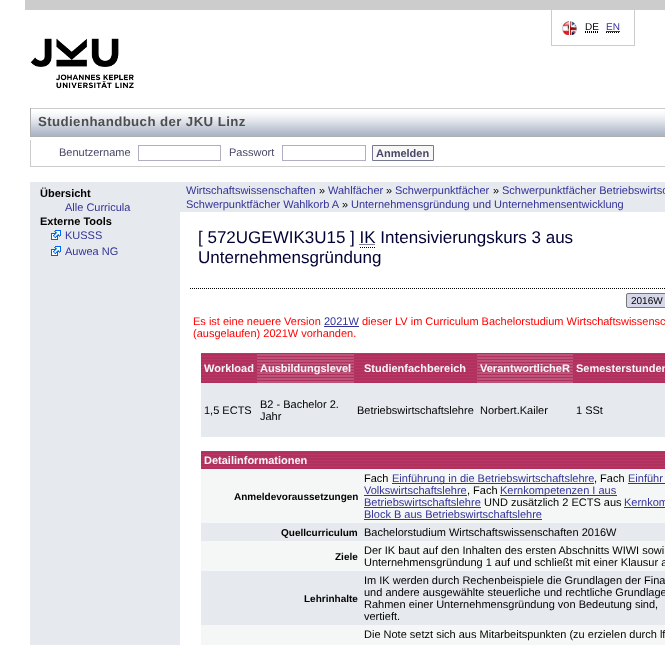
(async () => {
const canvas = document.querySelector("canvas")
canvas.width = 665
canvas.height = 645
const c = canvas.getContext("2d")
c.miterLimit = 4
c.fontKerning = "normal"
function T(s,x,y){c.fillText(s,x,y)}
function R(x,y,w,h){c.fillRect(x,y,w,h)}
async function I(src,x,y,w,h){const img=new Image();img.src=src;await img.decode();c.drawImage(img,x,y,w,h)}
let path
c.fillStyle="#fff"
R(0,0,665,645)
c.fillStyle="#ccc"
R(25,0,640,10)
R(634,10,1,36)
R(551,45,84,1)
R(551,10,1,36)
await I("1.png",562,21,15,14)
c.font="10px Liberation Sans"
c.fillStyle="#000"
T("DE",585,30)
path = new Path2D("M585 32.5h13m-13-1h13.5")
c.strokeStyle="#000"
c.setLineDash([1,1])
c.stroke(path)
c.fillStyle="#333298"
T("EN",606,30)
path = new Path2D("M606 32.5h14")
c.stroke(path)
R(606,31,14,1)
await I("2.png",30,38,104,51)
await I("3.png",31,108,634,28)
c.fillStyle="#aeaeae"
R(30,136,635,1)
R(30,108,1,29)
c.letterSpacing="0.4px"
c.font="bold 13.25px Liberation Sans"
c.fillStyle="#4e4e4e"
T("Studienhandbuch der JKU Linz",38,126)
c.fillStyle="#ccc"
R(30,166,635,1)
R(30,140,1,27)
c.letterSpacing="0px"
c.font="11px Liberation Sans"
c.fillStyle="#474766"
T("Benutzername",59,156)
c.strokeStyle="#b0aec3"
c.setLineDash([])
c.strokeRect(138.5,145.5,82,15)
T("Passwort",229,156)
c.strokeRect(282.5,145.5,83,15)
c.fillStyle="#f7f7f7"
c.beginPath()
c.rect(372.5,145.5,61,15)
c.fill()
c.strokeStyle="#747895"
c.stroke()
c.font="bold 11px Liberation Sans"
c.fillStyle="#474766"
T("Anmelden",376,157)
c.fillStyle="#e6e9ee"
R(30,182,150,463)
c.fillStyle="#000"
T("Übersicht",40,197)
c.font="11px Liberation Sans"
c.fillStyle="#333298"
T("Alle Curricula",65,211)
c.font="bold 11px Liberation Sans"
c.fillStyle="#000"
T("Externe Tools",40,225)
await I("4.png",51,230,10,10)
c.font="11px Liberation Sans"
c.fillStyle="#333298"
T("KUSSS",65,239)
await I("4.png",51,246,10,10)
T("Auwea NG",65,255)
c.fillStyle="#e6e9ee"
R(180,182,485,30)
c.fillStyle="#333298"
T("Wirtschaftswissenschaften",186,194)
c.fillStyle="#000"
T("»",319,194)
c.fillStyle="#333298"
T("Wahlfächer",328,194)
c.fillStyle="#000"
T("»",386,194)
c.fillStyle="#333298"
T("Schwerpunktfächer",395,194)
c.fillStyle="#000"
T("»",493,194)
c.fillStyle="#333298"
T("Schwerpunktfächer Betriebswirtsc",502,194)
T("Schwerpunktfächer Wahlkorb A",186,208)
c.fillStyle="#000"
T("»",342,208)
c.fillStyle="#333298"
T("Unternehmensgründung und Unternehmensentwicklung",351,208)
path = new Path2D("M190 288.5h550")
c.strokeStyle="#000"
c.setLineDash([1,1])
c.stroke(path)
c.font="17px Liberation Sans"
c.fillStyle="#003"
T("[ 572UGEWIK3U15 ] IK Intensivierungskurs 3 aus",198,243)
path = new Path2D("M359.5 244.5h16")
c.strokeStyle="#003"
c.stroke(path)
path = new Path2D("M360 247.5h16")
c.strokeStyle="#000"
c.stroke(path)
T("Unternehmensgründung",198,263)
c.fillStyle="#d6d7e9"
c.beginPath()
c.roundRect(626.5,293.5,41,14,1.5)
c.fill()
c.strokeStyle="#767676"
c.setLineDash([])
c.stroke()
c.font="10px Liberation Sans"
c.fillStyle="#000"
T("2016W",631,304)
c.font="11px Liberation Sans"
c.fillStyle="#f00"
T("Es ist eine neuere Version",193,325)
c.fillStyle="#333298"
T("2021W",324,325)
R(324,326,35,1)
c.fillStyle="#f00"
T("dieser LV im Curriculum Bachelorstudium Wirtschaftswissensc",362,325)
T("(ausgelaufen) 2021W vorhanden.",193,337)
await I("5.png",201,353,56,30)
c.font="bold 11px Liberation Sans"
c.fillStyle="#f7f7f7"
T("Workload",204,372)
await I("6.png",257,353,97,30)
T("Ausbildungslevel",260,372)
await I("7.png",354,353,123,30)
T("Studienfachbereich",364,372)
await I("8.png",477,353,96,30)
T("VerantwortlicheR",480,372)
await I("9.png",573,353,92,30)
T("Semesterstunden",576,372)
c.fillStyle="#e6e9ed"
R(201,383,464,54)
c.font="11px Liberation Sans"
c.fillStyle="#000"
T("1,5 ECTS",204,414)
T("B2 - Bachelor 2.",260,408)
T("Jahr",260,420)
T("Betriebswirtschaftslehre",357,414)
T("Norbert.Kailer",480,414)
T("1 SSt",576,414)
await I("10.png",201,451,464,18)
c.font="bold 11px Liberation Sans"
c.fillStyle="#f7f7f7"
T("Detailinformationen",204,464)
c.fillStyle="#f5f7f7"
R(201,469,464,54)
c.font="bold 10px Liberation Sans"
c.fillStyle="#000"
T("Anmeldevoraussetzungen",234,500)
c.font="11px Liberation Sans"
T("Fach",364,482)
c.fillStyle="#333298"
R(392,483,202,1)
T("Einführung in die Betriebswirtschaftslehre",392,482)
c.fillStyle="#000"
T(", Fach",594,482)
c.fillStyle="#333298"
T("Einführ",628,482)
R(628,483,37,1)
T("Volkswirtschaftslehre",364,494)
R(364,495,103,1)
c.fillStyle="#000"
T(", Fach",467,494)
c.fillStyle="#333298"
R(500,495,117,1)
T("Kernkompetenzen I aus",500,494)
T("Betriebswirtschaftslehre",364,506)
R(364,507,117,1)
c.fillStyle="#000"
T("UND zusätzlich 2 ECTS aus",484,506)
c.fillStyle="#333298"
T("Kernkom",624,506)
R(624,507,41,1)
T("Block B aus Betriebswirtschaftslehre",364,518)
R(364,519,178,1)
c.fillStyle="#e6e9ed"
R(201,523,464,18)
c.font="bold 10px Liberation Sans"
c.fillStyle="#000"
T("Quellcurriculum",281,536)
c.font="11px Liberation Sans"
T("Bachelorstudium Wirtschaftswissenschaften 2016W",364,536)
c.fillStyle="#f5f7f7"
R(201,541,464,30)
c.font="bold 10px Liberation Sans"
c.fillStyle="#000"
T("Ziele",335,560)
c.font="11px Liberation Sans"
T("Der IK baut auf den Inhalten des ersten Abschnitts WIWI sowi",364,554)
T("Unternehmensgründung 1 auf und schließt mit einer Klausur a",364,566)
c.fillStyle="#e6e9ed"
R(201,571,464,54)
c.font="bold 10px Liberation Sans"
c.fillStyle="#000"
T("Lehrinhalte",304,602)
c.font="11px Liberation Sans"
T("Im IK werden durch Rechenbeispiele die Grundlagen der Fina",364,584)
T("und andere ausgewählte steuerliche und rechtliche Grundlage",364,596)
T("Rahmen einer Unternehmensgründung von Bedeutung sind,",364,608)
T("vertieft.",364,620)
c.fillStyle="#f5f7f7"
R(201,625,464,20)
c.fillStyle="#000"
T("Die Note setzt sich aus Mitarbeitspunkten (zu erzielen durch lf",364,638)
})()
